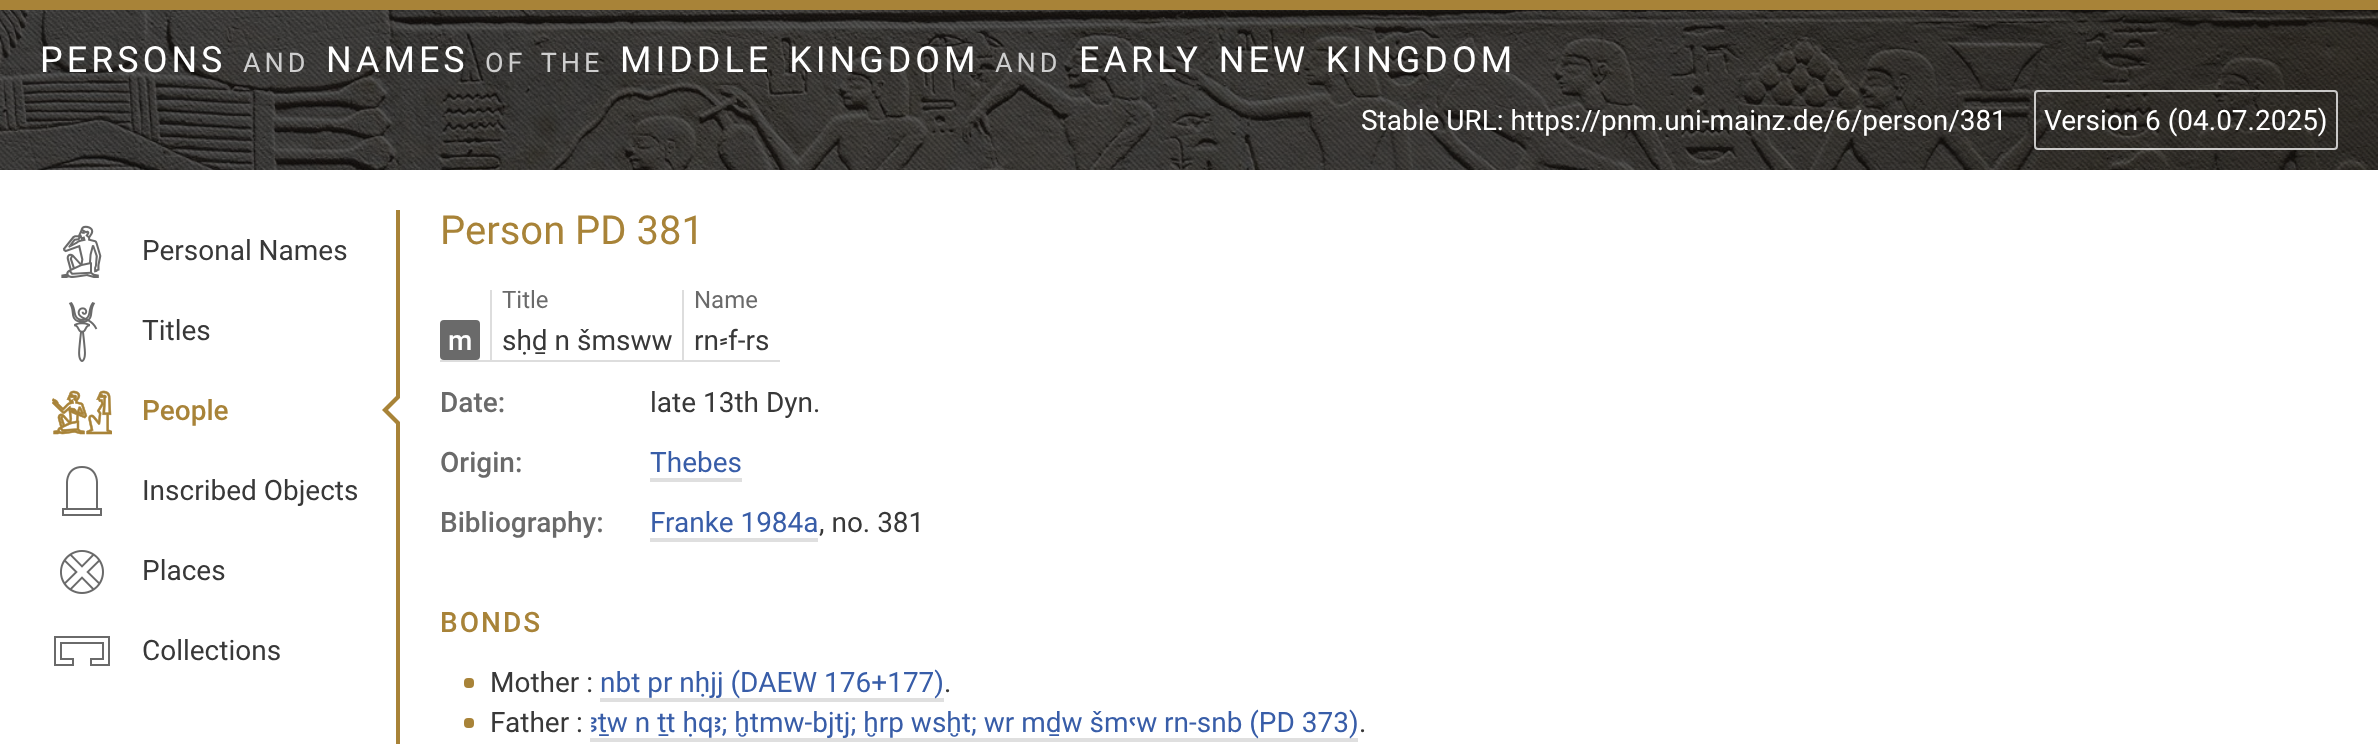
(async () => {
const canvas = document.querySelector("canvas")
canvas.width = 2378
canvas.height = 744
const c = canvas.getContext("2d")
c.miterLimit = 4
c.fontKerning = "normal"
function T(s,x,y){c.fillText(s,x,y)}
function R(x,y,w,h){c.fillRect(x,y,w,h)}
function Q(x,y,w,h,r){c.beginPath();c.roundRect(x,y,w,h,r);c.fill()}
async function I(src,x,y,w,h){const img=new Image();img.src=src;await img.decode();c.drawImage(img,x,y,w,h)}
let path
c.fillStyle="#fff"
R(0,0,2378,744)
c.fillStyle="#a88338"
R(0,0,2378,10)
await I("1.png",0,10,2378,160)
await I("2.png",0,10,2378,160)
c.letterSpacing="4px"
c.font="36px Roboto"
c.fillStyle="#fff"
T("PERSONS",40,72)
c.font="27px Roboto"
c.fillStyle="#cecece"
T("AND",243,72)
c.font="36px Roboto"
c.fillStyle="#fff"
T("NAMES",326,72)
c.wordSpacing="4px"
c.font="27px Roboto"
c.fillStyle="#cecece"
T("OF THE",485,72)
c.font="36px Roboto"
c.fillStyle="#fff"
T("MIDDLE KINGDOM",620,72)
c.wordSpacing="0px"
c.font="27px Roboto"
c.fillStyle="#cecece"
T("AND",995,72)
c.wordSpacing="4px"
c.font="36px Roboto"
c.fillStyle="#fff"
T("EARLY NEW KINGDOM",1079,72)
c.letterSpacing="0px"
c.wordSpacing="0px"
c.font="28px Roboto"
T("Stable URL: https://pnm.uni-mainz.de/6/person/381",1361,130)
c.beginPath()
c.roundRect(2035,91,302,58,3)
c.strokeStyle="#ffffffbf"
c.lineWidth=2
c.stroke()
T("Version 6 (04.07.2025)",2044,130)
c.fillStyle="#a88338"
R(396,210,4,534)
await I("3.png",61,225,41,53)
c.fillStyle="#383838"
T("Personal Names",142,260)
await I("4.png",68,302,30,60)
T("Titles",142,340)
await I("5.png",52,390,60,45)
c.font="500 28px Roboto"
c.fillStyle="#a88338"
T("People",142,420)
path = new Path2D("M396 396v28l-14-14z")
c.fill(path)
c.fillStyle="#fff"
path = new Path2D("M402 396v28l-14-14z")
c.fill(path)
await I("6.png",62,466,40,50)
c.font="28px Roboto"
c.fillStyle="#383838"
T("Inscribed Objects",142,500)
await I("7.png",60,550,44,44)
T("Places",142,580)
await I("8.png",54,636,56,30)
T("Collections",142,660)
c.font="40px Roboto"
c.fillStyle="#a88338"
T("Person PD 381",440,244)
c.font="24px Roboto"
c.fillStyle="#6a6a6a"
T("Title",502,308)
T("Name",694,308)
c.fillStyle="#ddd"
R(682,360,98,2)
R(682,290,2,72)
R(490,360,194,2)
R(490,290,2,72)
R(440,360,52,2)
c.fillStyle="#6a6a6a"
Q(440,320,40,40,4)
c.font="500 28px Roboto"
c.fillStyle="#fff"
T("m",448,350)
c.font="28px Roboto"
c.fillStyle="#383838"
T("sḥḏ n šmsww",502,350)
T("rn⸗f-rs",694,350)
c.font="500 28px Roboto"
c.fillStyle="#6a6a6a"
T("Date:",440,412)
c.font="28px Roboto"
c.fillStyle="#383838"
T("late 13th Dyn.",650,412)
c.font="500 28px Roboto"
c.fillStyle="#6a6a6a"
T("Origin:",440,472)
c.font="28px Roboto"
c.fillStyle="#385da8"
T("Thebes",650,472)
c.fillStyle="#dfdfdf"
R(650,478,92,4)
c.font="500 28px Roboto"
c.fillStyle="#6a6a6a"
T("Bibliography:",440,532)
c.font="28px Roboto"
c.fillStyle="#385da8"
T("Franke 1984a",650,532)
c.fillStyle="#dfdfdf"
R(650,538,168,4)
c.fillStyle="#383838"
T(", no. 381",819,532)
c.letterSpacing="2px"
c.font="500 28px Roboto"
c.fillStyle="#a88338"
T("BONDS",440,632)
Q(464,678,10,10,4)
c.letterSpacing="0px"
c.font="28px Roboto"
c.fillStyle="#383838"
T("Mother :",490,692)
c.fillStyle="#dfdfdf"
R(600,698,344,4)
c.fillStyle="#385da8"
T("nbt pr nḥjj (DAEW 176+177)",600,692)
c.fillStyle="#383838"
T(".",944,692)
c.fillStyle="#a88338"
Q(464,718,10,10,4)
c.fillStyle="#383838"
T("Father :",490,732)
c.fillStyle="#dfdfdf"
R(590,738,768,4)
c.fillStyle="#385da8"
T("ꜣṯw n ṯt ḥqꜣ; ḫtmw-bjtj; ḫrp wsḫt; wr mḏw šmꜥw rn-snb (PD 373)",590,732)
c.fillStyle="#383838"
T(".",1359,732)
})()
